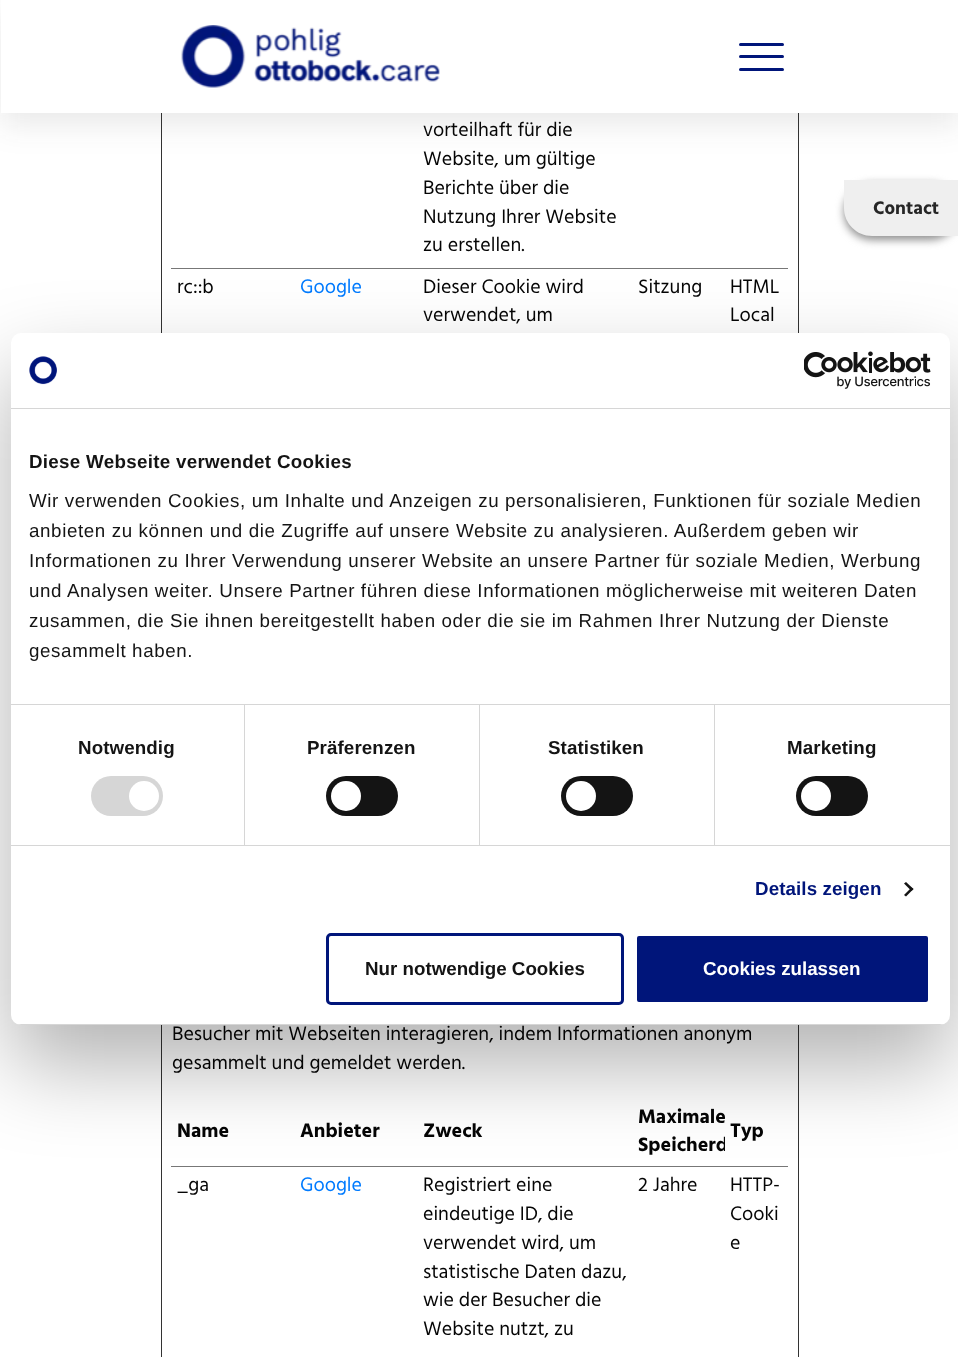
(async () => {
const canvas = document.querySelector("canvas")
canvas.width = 958
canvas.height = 1357
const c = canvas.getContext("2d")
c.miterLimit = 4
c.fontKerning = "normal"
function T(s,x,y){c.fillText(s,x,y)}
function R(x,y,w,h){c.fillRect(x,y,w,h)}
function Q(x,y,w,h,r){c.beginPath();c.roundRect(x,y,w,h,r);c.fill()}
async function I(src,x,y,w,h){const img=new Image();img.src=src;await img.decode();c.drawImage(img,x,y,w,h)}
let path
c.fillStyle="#fff"
R(0,0,958,1357)
c.strokeStyle="#333"
c.strokeRect(161.5,-.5,637,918)
c.fillStyle="#2828281a"
c.filter="blur(15.5px)"
c.beginPath()
c.rect(1,13,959,112)
c.fill()
c.filter="none"
c.fillStyle="#fff"
R(1,0,957,113)
await I("1.png",181,25,259,63)
c.fillStyle="#00157a"
c.beginPath()
c.roundRect(739,43,22,3,[1.5,0,0,1.5])
c.fill()
c.beginPath()
c.roundRect(761,43,23,3,[0,1.5,1.5,0])
c.fill()
c.beginPath()
c.roundRect(739,55,22,3,[1.5,0,0,1.5])
c.fill()
c.beginPath()
c.roundRect(761,55,23,3,[0,1.5,1.5,0])
c.fill()
c.beginPath()
c.roundRect(739,68,22,3,[1.5,0,0,1.5])
c.fill()
c.beginPath()
c.roundRect(761,68,23,3,[0,1.5,1.5,0])
c.fill()
c.font="20px Hind"
c.fillStyle="#050505"
T("vorteilhaft für die",423,136)
T("Website, um gültige",423,165)
T("Berichte über die",423,194)
T("Nutzung Ihrer Website",423,223)
T("zu erstellen.",423,251)
c.fillStyle="#777"
R(171,268,617,1)
c.fillStyle="#050505"
T("rc::b",177,293)
c.fillStyle="#007bff"
T("Google",300,293)
c.fillStyle="#050505"
T("Dieser Cookie wird",423,293)
T("verwendet, um",423,321)
T("Sitzung",638,293)
T("HTML",730,293)
T("Local",730,321)
c.strokeRect(161.5,933.5,637,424)
T("Besucher mit Webseiten interagieren, indem Informationen anonym",172,1040)
T("gesammelt und gemeldet werden.",172,1069)
c.font="bold 20px Hind"
T("Name",177,1137)
T("Anbieter",300,1137)
T("Zweck",423,1137)
T("Maximale",638,1123)
c.save()
c.beginPath()
c.rect(633,1099,92,67)
c.clip()
T("Speicherd",638,1151)
c.restore()
c.fillStyle="#777"
R(171,1166,617,1)
c.fillStyle="#050505"
T("Typ",730,1137)
c.font="20px Hind"
T("_ga",177,1191)
c.fillStyle="#007bff"
T("Google",300,1191)
c.fillStyle="#050505"
T("Registriert eine",423,1191)
T("eindeutige ID, die",423,1220)
T("verwendet wird, um",423,1249)
T("statistische Daten dazu,",423,1278)
T("wie der Besucher die",423,1306)
T("Website nutzt, zu",423,1335)
T("2 Jahre",638,1191)
T("HTTP-",730,1191)
T("Cooki",730,1220)
T("e",730,1249)
c.fillStyle="#8f8f8f"
c.filter="blur(4px)"
c.beginPath()
c.roundRect(844,184,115,56,28)
c.fill()
c.filter="none"
c.fillStyle="#efefef"
path = new Path2D("M844 180h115v56h-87c-15.5 0-28-12.5-28-28z")
c.fill(path)
c.font="bold 18.75px Hind"
c.fillStyle="#262626"
T("Contact",873,214)
c.fillStyle="#0000004d"
c.filter="blur(42.5px)"
c.beginPath()
c.roundRect(11,373,939,692,10)
c.fill()
c.filter="none"
c.fillStyle="#fff"
Q(11,333,939,692,10)
c.fillStyle="#d6d6d6"
R(11,408,939,1)
await I("2.png",29,356,28,29)
await I("3.png",804,351,127,38)
R(11,704,939,1)
c.letterSpacing="0.3px"
c.font="bold 18.75px Liberation Sans"
c.fillStyle="#141414"
T("Diese Webseite verwendet Cookies",29,468)
c.letterSpacing="0.62px"
c.font="18.75px Liberation Sans"
T("Wir verwenden Cookies, um Inhalte und Anzeigen zu personalisieren, Funktionen für soziale Medien",29,507)
T("anbieten zu können und die Zugriffe auf unsere Website zu analysieren. Außerdem geben wir",29,537)
T("Informationen zu Ihrer Verwendung unserer Website an unsere Partner für soziale Medien, Werbung",29,567)
T("und Analysen weiter. Unsere Partner führen diese Informationen möglicherweise mit weiteren Daten",29,597)
T("zusammen, die Sie ihnen bereitgestellt haben oder die sie im Rahmen Ihrer Nutzung der Dienste",29,627)
T("gesammelt haben.",29,657)
c.fillStyle="#d6d6d6"
R(11,845,939,1)
R(244,705,1,140)
c.letterSpacing="0.1px"
c.font="bold 18.75px Liberation Sans"
c.fillStyle="#141414"
T("Notwendig",78,754)
c.fillStyle="#d6d6d6"
Q(91,776,72,40,20)
c.fillStyle="#fff"
c.beginPath()
c.arc(144,796,15,0,7)
c.fill()
c.fillStyle="#d6d6d6"
R(479,705,1,140)
c.fillStyle="#141414"
T("Präferenzen",307,754)
Q(326,776,72,40,20)
c.fillStyle="#fff"
c.beginPath()
c.arc(346,796,15,0,7)
c.fill()
c.fillStyle="#d6d6d6"
R(714,705,1,140)
c.fillStyle="#141414"
T("Statistiken",548,754)
Q(561,776,72,40,20)
c.fillStyle="#fff"
c.beginPath()
c.arc(581,796,15,0,7)
c.fill()
c.fillStyle="#141414"
T("Marketing",787,754)
Q(796,776,72,40,20)
c.fillStyle="#fff"
c.beginPath()
c.arc(816,796,15,0,7)
c.fill()
c.fillStyle="#00157a"
T("Details zeigen",755,895)
c.fillStyle="#141414"
path = new Path2D("M906 882l7.5 7l-2 2l-7.5-7.5z")
c.fill(path)
path = new Path2D("M911.5 887.5l2 1.5l-7.5 7.5l-2-1.5z")
c.fill(path)
c.save()
c.beginPath()
c.roundRect(11,333,939,692,10)
c.clip()
c.fillStyle="#d6d6d6"
R(11,1024,939,1)
c.restore()
c.beginPath()
c.roundRect(327.5,934.5,295,69,3.5)
c.strokeStyle="#00157a"
c.lineWidth=3
c.stroke()
c.letterSpacing="0px"
T("Nur notwendige Cookies",365,975)
c.fillStyle="#00157a"
c.beginPath()
c.roundRect(635.5,934.5,294,69,3.5)
c.fill()
c.strokeStyle="#fff"
c.stroke()
c.fillStyle="#fff"
T("Cookies zulassen",703,975)
})()
